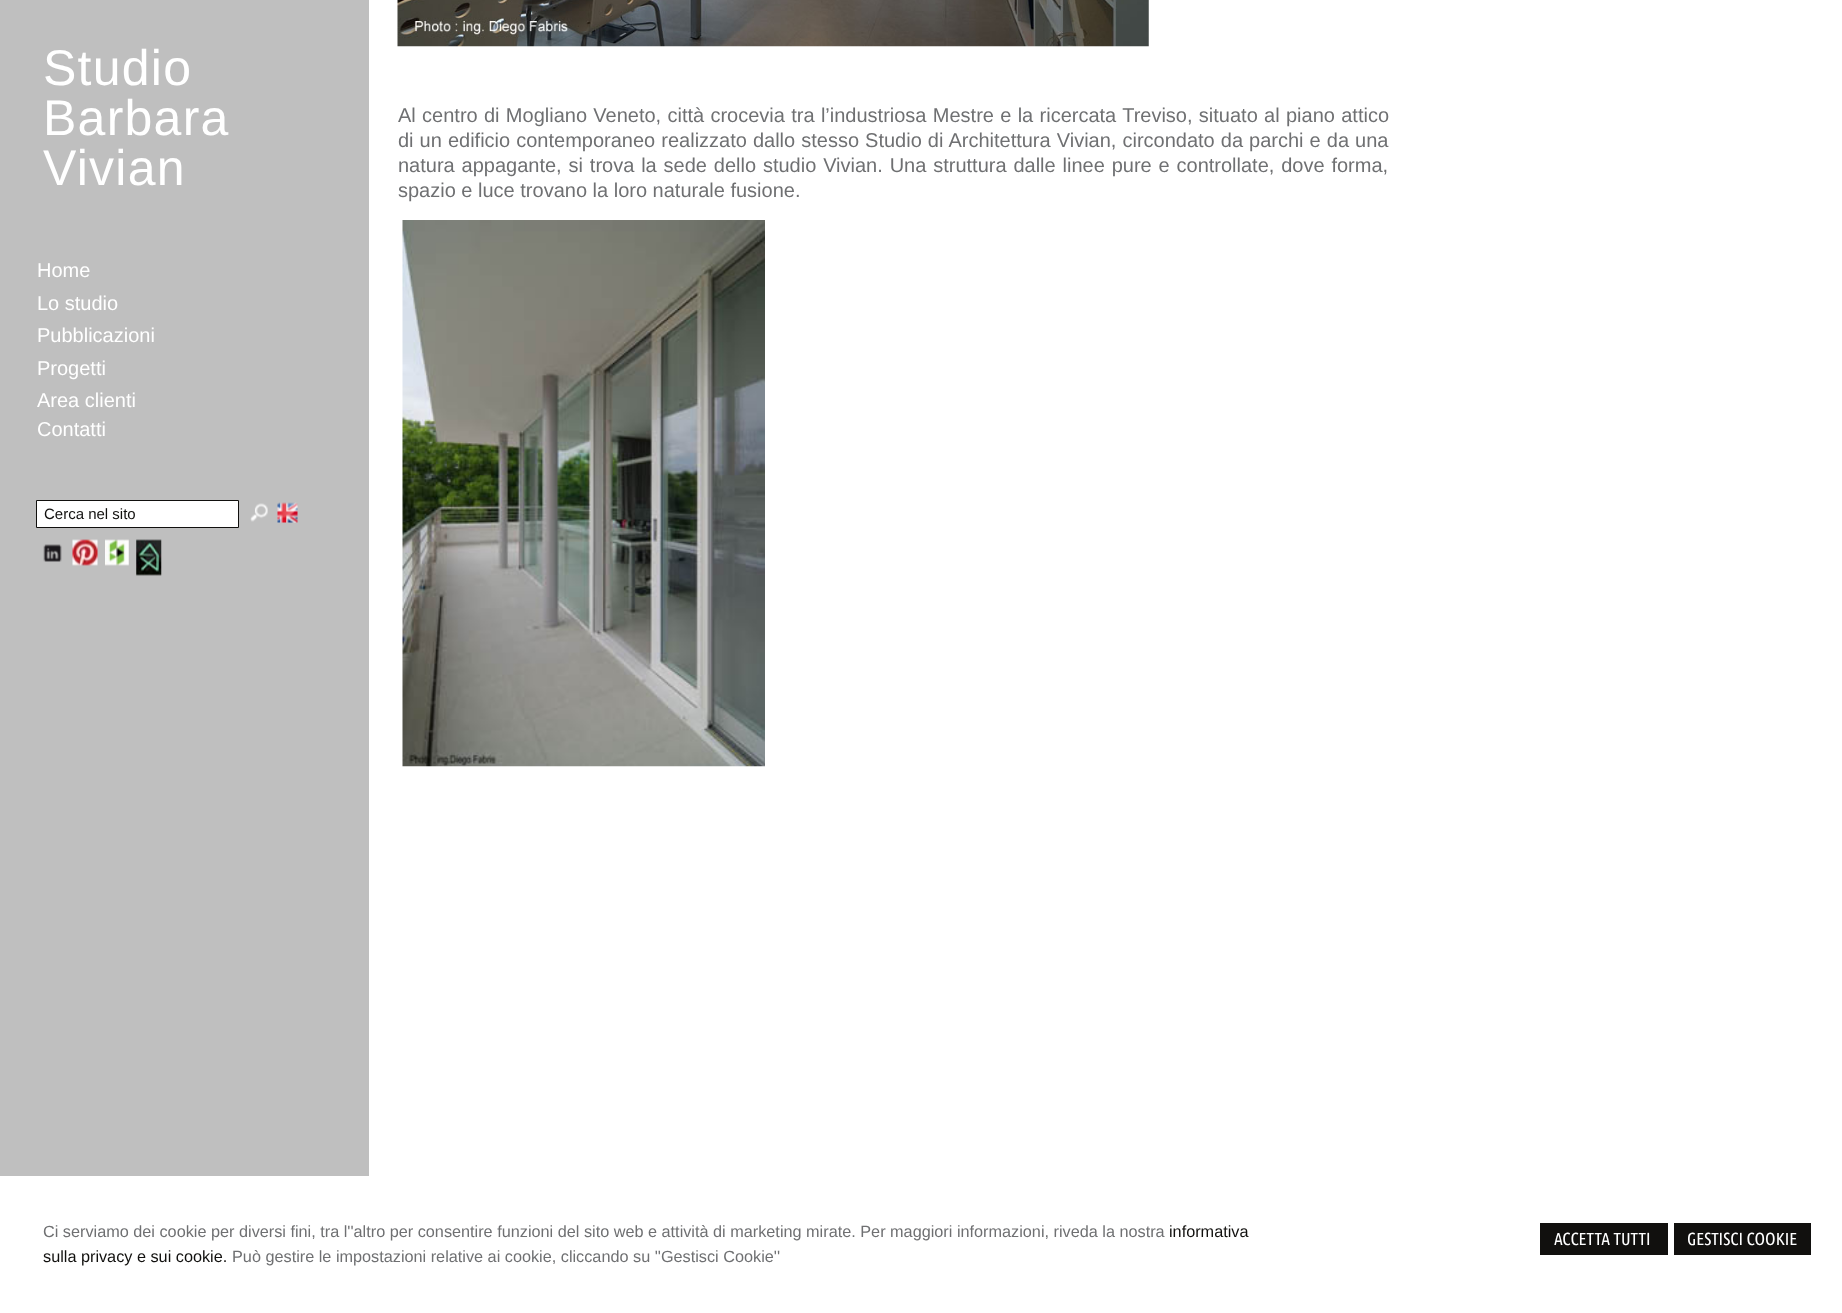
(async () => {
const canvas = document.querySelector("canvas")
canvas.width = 1842
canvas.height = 1313
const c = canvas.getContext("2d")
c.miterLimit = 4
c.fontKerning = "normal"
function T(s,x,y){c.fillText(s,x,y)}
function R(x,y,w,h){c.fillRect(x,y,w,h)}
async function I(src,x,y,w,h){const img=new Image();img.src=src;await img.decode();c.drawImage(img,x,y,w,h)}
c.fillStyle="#fff"
R(0,0,1842,1313)
c.fillStyle="#bfbfbf"
R(0,0,369,1176)
c.letterSpacing="1.25px"
c.font="50px Liberation Sans"
c.fillStyle="#fff"
T("Studio",43,85)
T("Barbara",43,135)
T("Vivian",43,185)
c.letterSpacing="0px"
c.font="20px Liberation Sans"
T("Home",37,277)
T("Lo studio",37,310)
T("Pubblicazioni",37,342)
T("Progetti",37,375)
T("Area clienti",37,407)
T("Contatti",37,436)
c.beginPath()
c.rect(36.5,500.5,202,27)
c.fill()
c.strokeStyle="#11100e"
c.stroke()
c.font="15px Liberation Sans"
c.fillStyle="#11100e"
T("Cerca nel sito",44,519)
await I("1.png",250,503,18,19)
await I("2.png",277,502,21,21)
await I("3.png",43,544,19,18)
await I("4.png",72,539,26,27)
await I("5.png",105,539,24,27)
await I("6.png",136,539,26,37)
await I("7.png",397,0,752,47)
c.wordSpacing="0.75px"
c.font="20px Liberation Sans"
c.fillStyle="#6f7072"
T("Al centro di Mogliano Veneto, città crocevia tra l’industriosa Mestre e la ricercata Treviso, situato al piano attico",398,122)
c.wordSpacing="0.5px"
T("di un edificio contemporaneo realizzato dallo stesso Studio di Architettura Vivian, circondato da parchi e da una",398,147)
c.wordSpacing="1.3px"
T("natura appagante, si trova la sede dello studio Vivian. Una struttura dalle linee pure e controllate, dove forma,",398,172)
c.wordSpacing="0px"
T("spazio e luce trovano la loro naturale fusione.",398,197)
await I("8.png",402,220,363,547)
c.font="16.25px Liberation Sans"
T("Ci serviamo dei cookie per diversi fini, tra l''altro per consentire funzioni del sito web e attività di marketing mirate. Per maggiori informazioni, riveda la nostra",43,1237)
c.fillStyle="#11100e"
T("informativa",1169,1237)
T("sulla privacy e sui cookie.",43,1262)
c.fillStyle="#6f7072"
T("Può gestire le impostazioni relative ai cookie, cliccando su ''Gestisci Cookie''",232,1262)
c.fillStyle="#11100e"
R(1540,1223,128,32)
c.font="17.5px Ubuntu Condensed"
c.fillStyle="#fff"
T("ACCETTA TUTTI",1554,1245)
c.fillStyle="#11100e"
R(1674,1223,137,32)
c.fillStyle="#fff"
T("GESTISCI COOKIE",1687,1245)
})()
